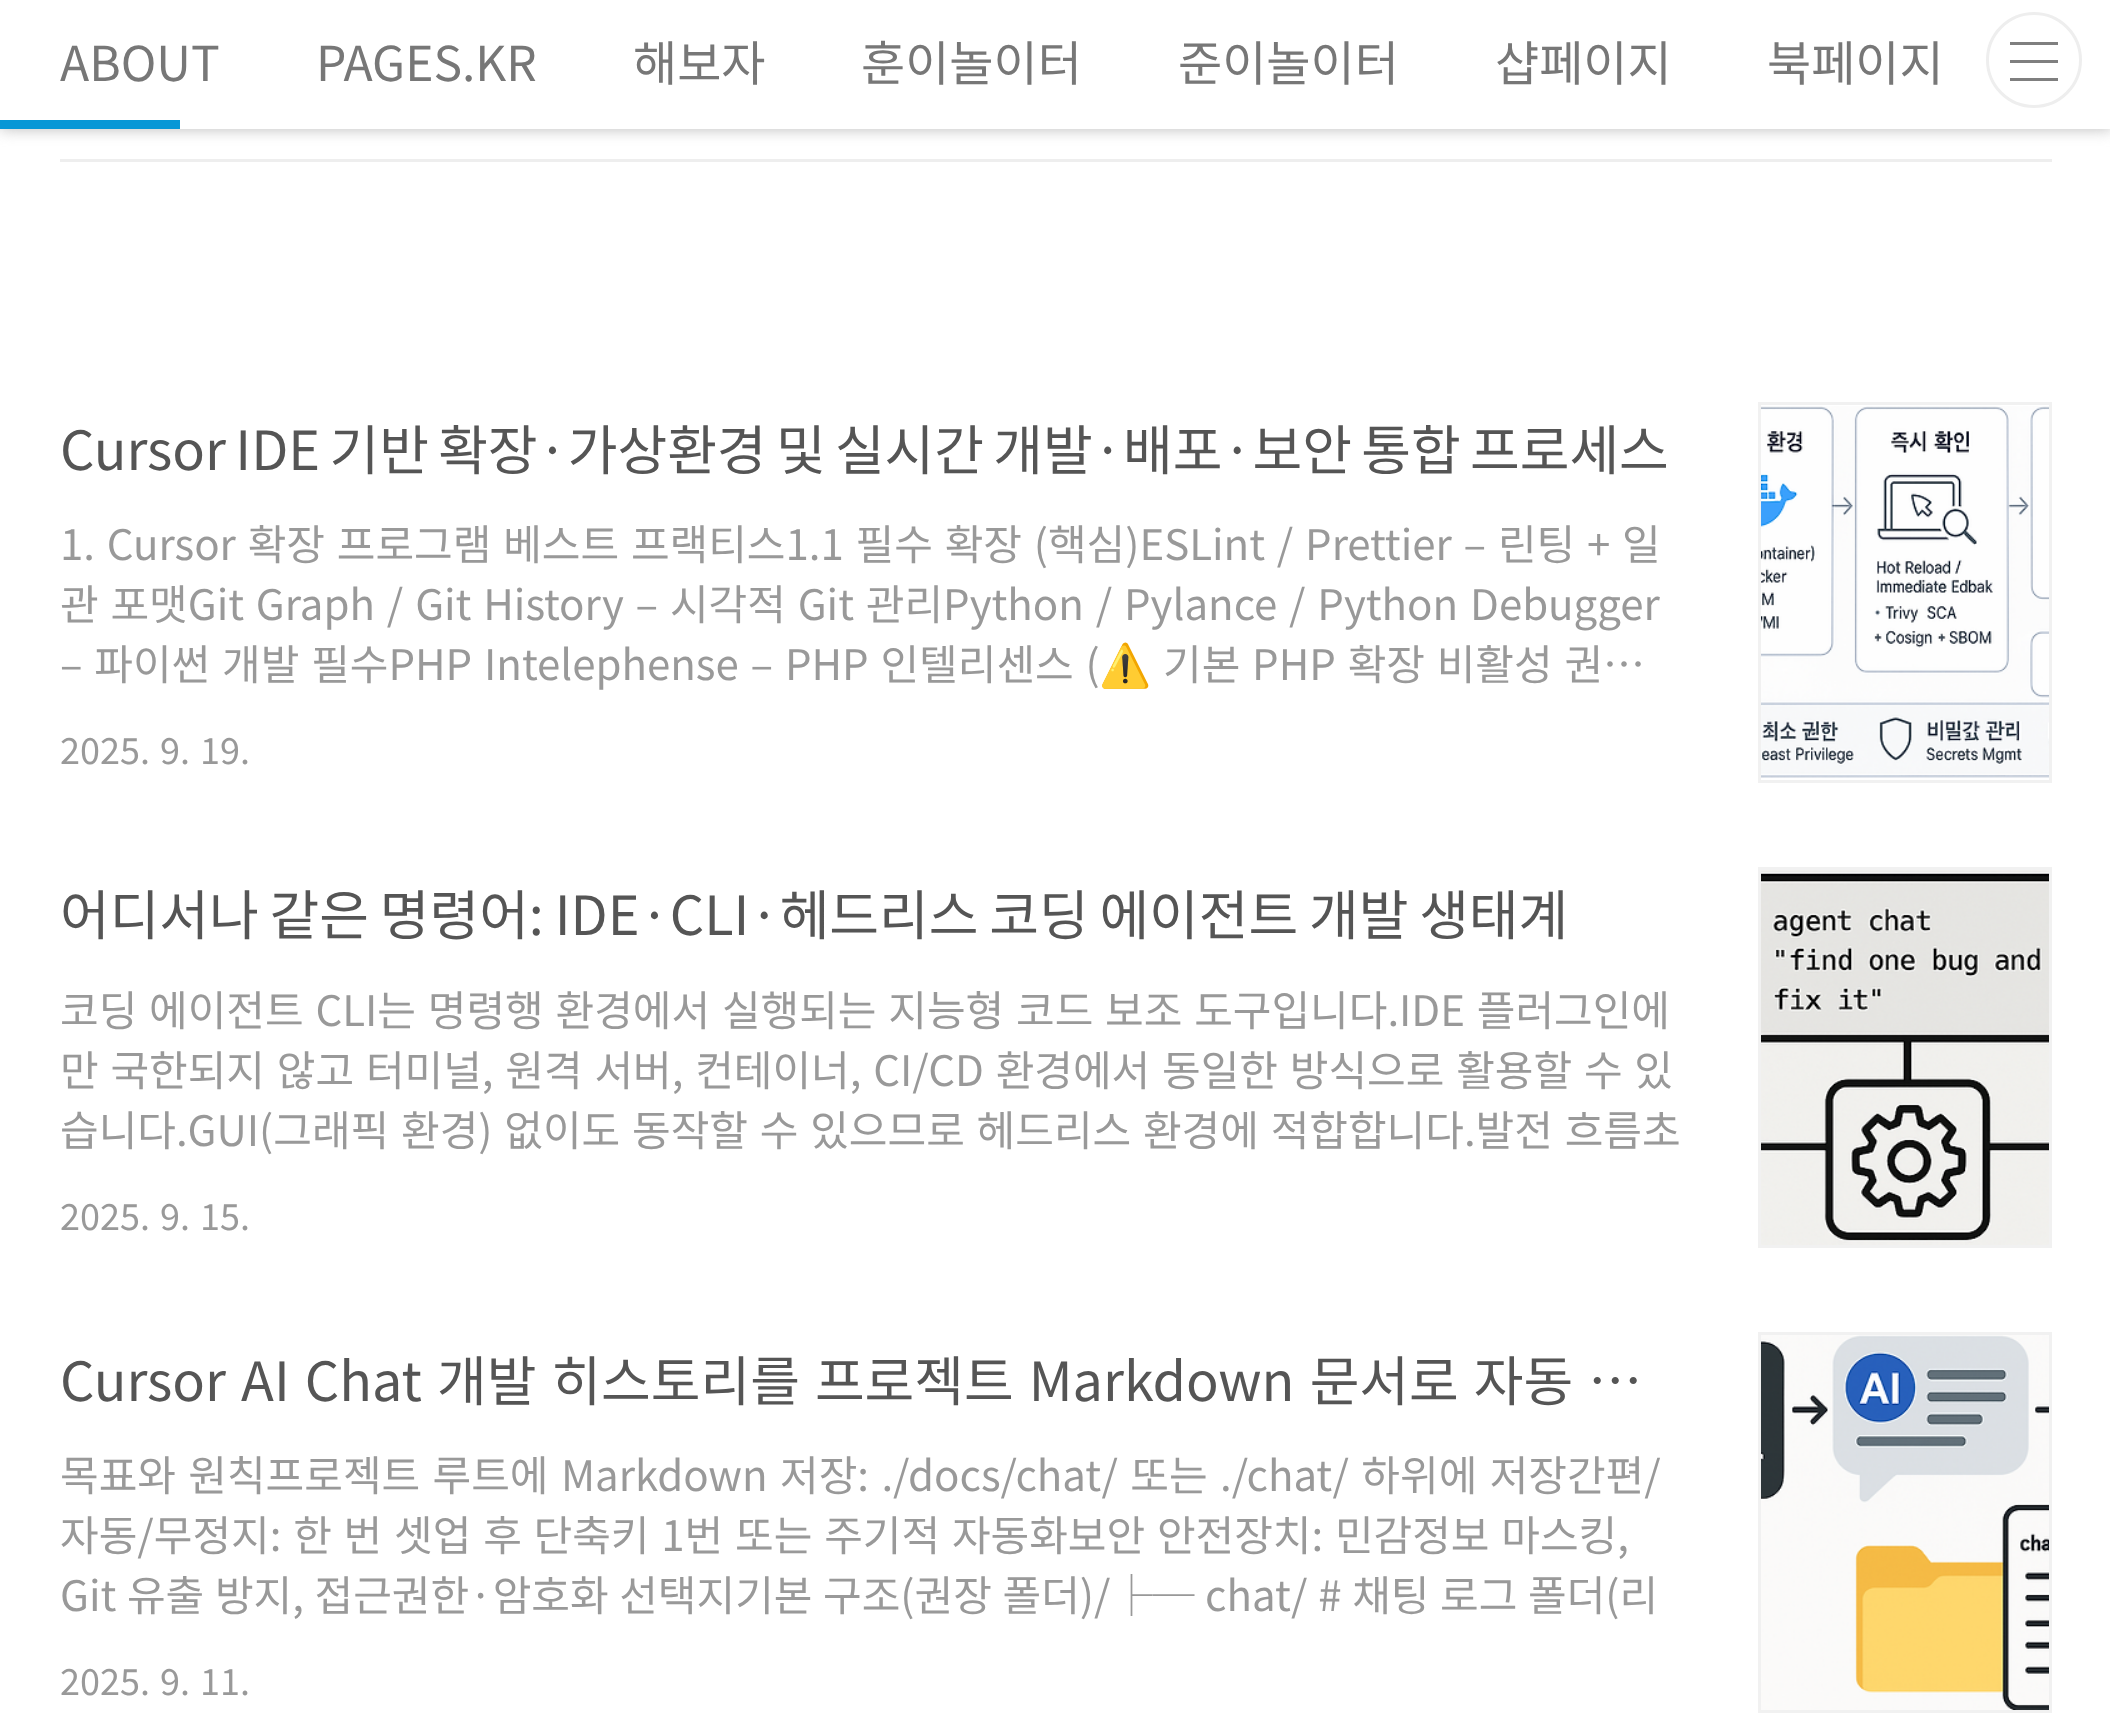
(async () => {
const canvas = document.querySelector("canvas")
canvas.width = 2110
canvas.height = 1715
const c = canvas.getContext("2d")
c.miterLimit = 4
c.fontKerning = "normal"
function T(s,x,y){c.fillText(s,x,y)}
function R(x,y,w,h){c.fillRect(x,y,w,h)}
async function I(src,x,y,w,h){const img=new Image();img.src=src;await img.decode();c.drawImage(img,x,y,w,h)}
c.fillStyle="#fff"
R(0,0,2110,1715)
c.fillStyle="#bbb"
c.filter="blur(7.5px)"
c.beginPath()
c.rect(0,0,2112,129)
c.fill()
c.filter="none"
c.fillStyle="#fff"
R(0,0,2110,129)
c.font="100 48px Noto Sans KR"
c.fillStyle="#777"
T("ABOUT",60,81)
T("PAGES.KR",316,81)
T("해보자",633,81)
T("훈이놀이터",861,81)
T("준이놀이터",1178,81)
T("샵페이지",1495,81)
T("북페이지",1767,81)
c.fillStyle="#0797d6"
R(0,120,180,9)
c.beginPath()
c.arc(2034,60,46.5,0,7)
c.strokeStyle="#eee"
c.lineWidth=3
c.stroke()
c.fillStyle="#7f7f7f"
R(2010,42,48,3)
R(2010,60,48,3)
R(2010,78,48,3)
c.fillStyle="#eee"
R(60,159,1992,3)
c.wordSpacing="-2.75px"
c.font="100 54px Noto Sans KR"
c.fillStyle="#555"
T("Cursor IDE 기반 확장·가상환경 및 실시간 개발·배포·보안 통합 프로세스",60,470)
c.strokeStyle="#f1f1f1"
c.strokeRect(1759.5,403.5,291,378)
await I("1.png",1761,406,288,372)
c.wordSpacing="2.4px"
c.font="100 42px Noto Sans KR"
c.fillStyle="#999"
T("1. Cursor 확장 프로그램 베스트 프랙티스1.1 필수 확장 (핵심)ESLint / Prettier – 린팅 + 일",60,560)
T("관 포맷Git Graph / Git History – 시각적 Git 관리Python / Pylance / Python Debugger",60,620)
T("– 파이썬 개발 필수PHP Intelephense – PHP 인텔리센스 (",60,680)
c.wordSpacing="0px"
c.font="42px Noto Color Emoji"
T("⚠️",1099,680)
c.wordSpacing="2.4px"
c.font="100 42px Noto Sans KR"
T("기본 PHP 확장 비활성 권…",1163,680)
c.wordSpacing="2px"
c.font="100 36px Noto Sans KR"
T("2025. 9. 19.",60,764)
c.wordSpacing="-1.25px"
c.font="100 54px Noto Sans KR"
c.fillStyle="#555"
T("어디서나 같은 명령어: IDE·CLI·헤드리스 코딩 에이전트 개발 생태계",60,935)
c.strokeRect(1759.5,868.5,291,378)
await I("2.png",1761,870,288,375)
c.wordSpacing="2.4px"
c.font="100 42px Noto Sans KR"
c.fillStyle="#999"
T("코딩 에이전트 CLI는 명령행 환경에서 실행되는 지능형 코드 보조 도구입니다.IDE 플러그인에",60,1026)
T("만 국한되지 않고 터미널, 원격 서버, 컨테이너, CI/CD 환경에서 동일한 방식으로 활용할 수 있",60,1086)
T("습니다.GUI(그래픽 환경) 없이도 동작할 수 있으므로 헤드리스 환경에 적합합니다.발전 흐름초",60,1146)
c.wordSpacing="2px"
c.font="100 36px Noto Sans KR"
T("2025. 9. 15.",60,1230)
c.wordSpacing="3px"
c.font="100 54px Noto Sans KR"
c.fillStyle="#555"
T("Cursor AI Chat 개발 히스토리를 프로젝트 Markdown 문서로 자동 …",60,1401)
c.strokeRect(1759.5,1333.5,291,378)
await I("3.png",1761,1335,288,375)
c.font="100 42px Noto Sans KR"
c.fillStyle="#999"
T("목표와 원칙프로젝트 루트에 Markdown 저장: ./docs/chat/ 또는 ./chat/ 하위에 저장간편/",60,1491)
c.wordSpacing="2.4px"
T("자동/무정지: 한 번 셋업 후 단축키 1번 또는 주기적 자동화보안 안전장치: 민감정보 마스킹,",60,1551)
c.wordSpacing="1.25px"
T("Git 유출 방지, 접근권한·암호화 선택지기본 구조(권장 폴더)/├─ chat/ # 채팅 로그 폴더(리",60,1611)
c.wordSpacing="2px"
c.font="100 36px Noto Sans KR"
T("2025. 9. 11.",60,1695)
})()
